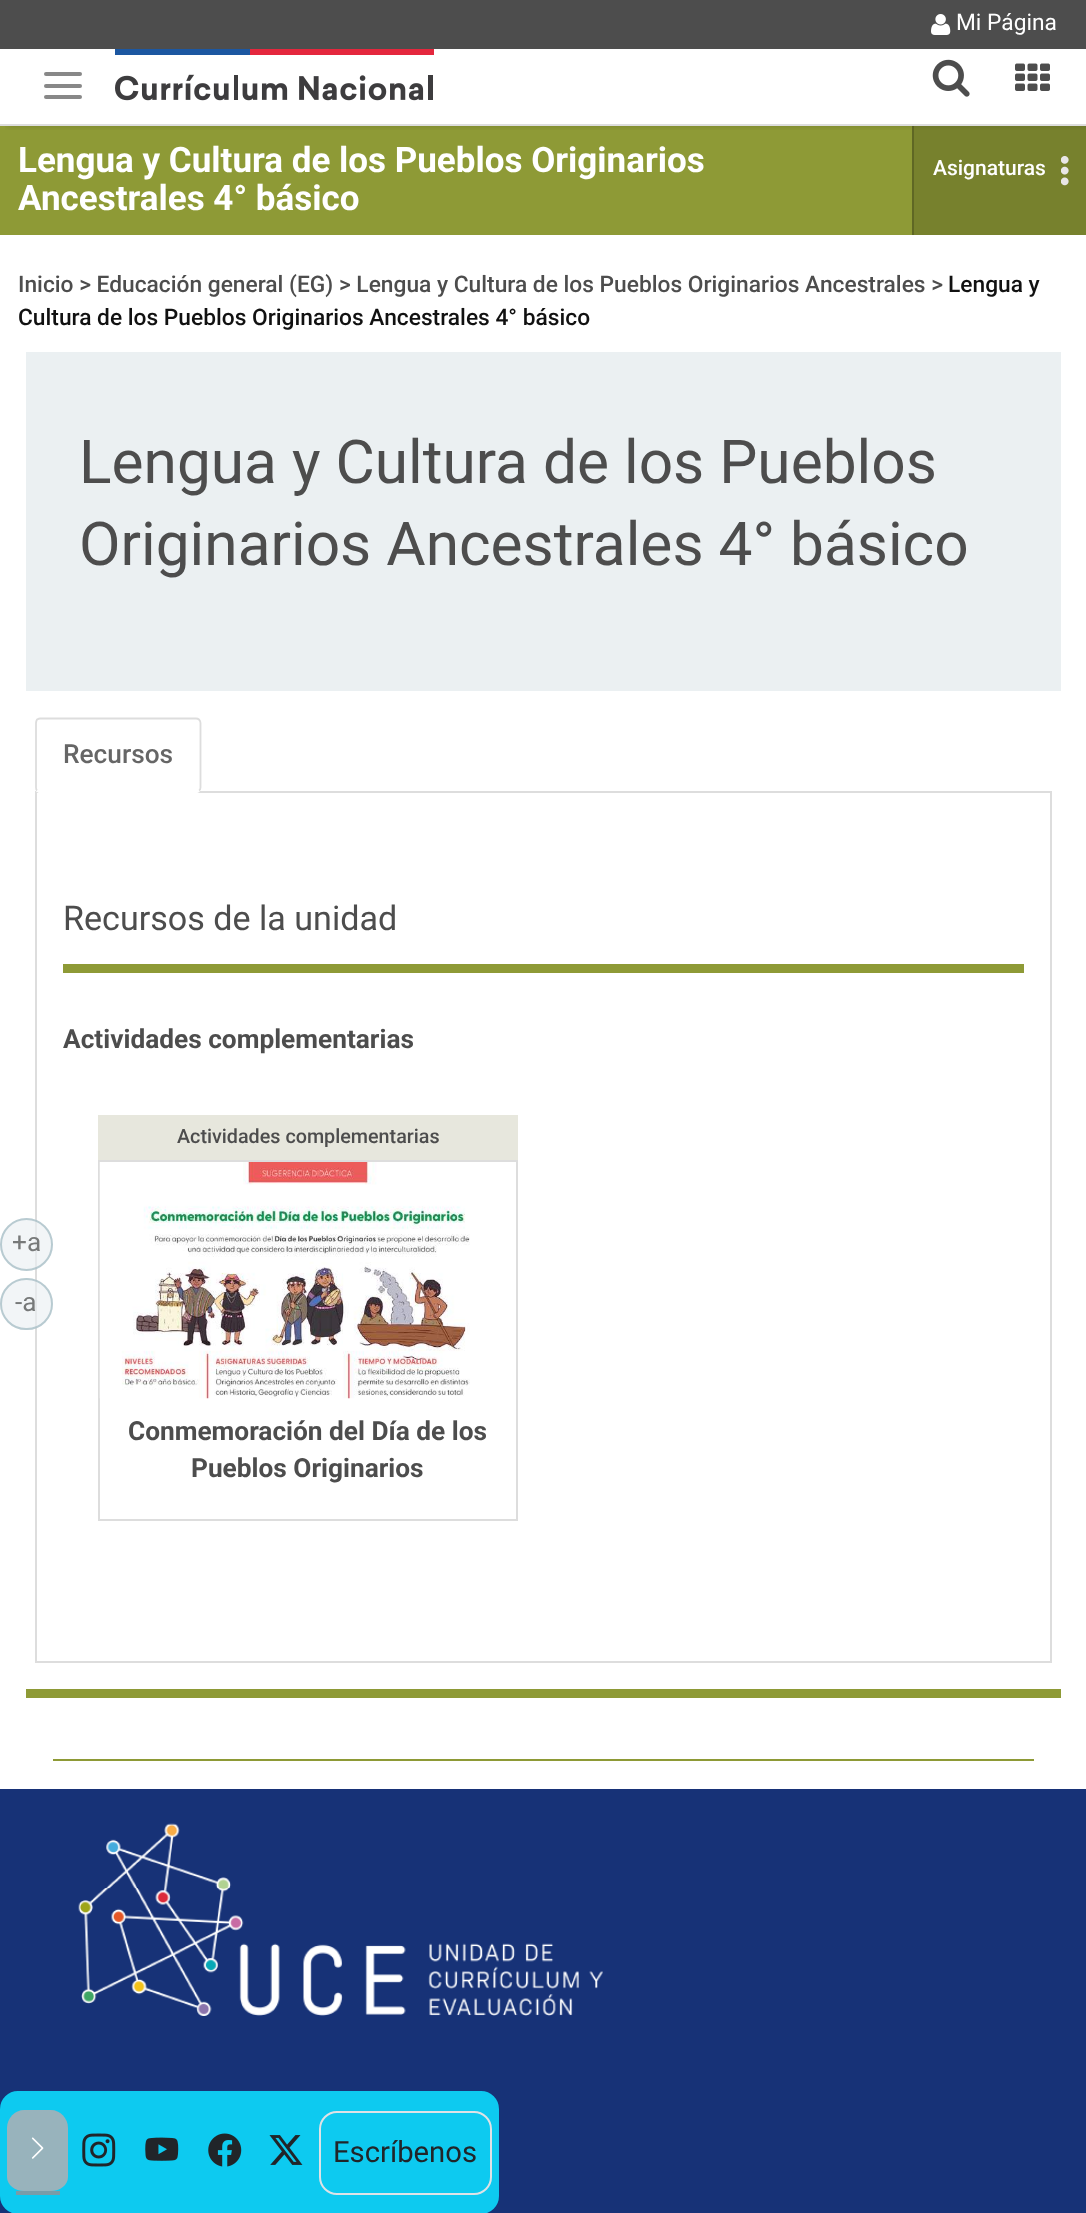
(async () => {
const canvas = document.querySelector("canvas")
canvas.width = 1086
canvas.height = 2213
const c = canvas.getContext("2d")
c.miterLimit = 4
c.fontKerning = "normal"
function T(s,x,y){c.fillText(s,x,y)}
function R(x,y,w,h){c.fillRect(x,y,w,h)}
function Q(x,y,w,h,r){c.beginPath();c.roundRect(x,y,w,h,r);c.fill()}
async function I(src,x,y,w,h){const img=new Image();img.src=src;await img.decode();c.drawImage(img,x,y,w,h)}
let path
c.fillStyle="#fff"
R(0,0,1086,2213)
c.fillStyle="#8e9a36"
R(0,126,912,109)
c.fillStyle="#77812d"
R(914,126,172,109)
c.fillStyle="#5f6724"
R(912,126,2,109)
c.save()
c.beginPath()
c.rect(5,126,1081,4)
c.clip()
c.fillStyle="#00000026"
c.filter="blur(3.5px)"
c.beginPath()
c.rect(7,39,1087,87)
c.fill()
c.filter="none"
c.restore()
c.fillStyle="#ddd"
R(0,124,1086,2)
c.fillStyle="#4d4d4d"
R(0,0,1086,49)
await I("1.png",931,14,20,21)
c.font="22.75px Roboto"
c.fillStyle="#fff"
T("Mi Página",956,30)
c.fillStyle="#888"
Q(44,72,38,4,2)
Q(44,84,38,4,2)
Q(44,95,38,4,2)
await I("2.png",115,49,319,52)
await I("3.png",932,59,38,38)
await I("4.png",1015,63,35,28)
c.font="bold 35px Roboto"
c.fillStyle="#fff"
T("Lengua y Cultura de los Pueblos Originarios",18,172)
T("Ancestrales 4° básico",18,210)
c.font="500 21px Roboto"
T("Asignaturas",933,175)
await I("5.png",1061,156,8,30)
c.font="500 22.75px Roboto"
c.fillStyle="#4d4d4d"
T("Inicio > Educación general (EG) > Lengua y Cultura de los Pueblos Originarios Ancestrales >",18,292)
c.fillStyle="#111"
T("Lengua y",948,292)
T("Cultura de los Pueblos Originarios Ancestrales 4° básico",18,325)
c.fillStyle="#ebf0f2"
R(26,352,1035,339)
c.font="60.4px Roboto"
c.fillStyle="#4d4d4d"
T("Lengua y Cultura de los Pueblos",79,483)
T("Originarios Ancestrales 4° básico",79,565)
c.fillStyle="#ddd"
R(35,791,1017,2)
c.fillStyle="#fff"
Q(35,718,166,75,5)
path = new Path2D("M199 790.5c-.5 1-2 1.5-3 1.5h-156c-1 0-2-.5-3-1.5")
c.strokeStyle="#fff"
c.lineWidth=1.8
c.stroke(path)
path = new Path2D("M37 790.5c-.5-.5-1-2-1-3v-64.5c0-1.5 .5-2.5 1-3.5c1-.5 2-1 3-1h156c1 0 2.5 .5 3 1c1 1 1.5 2 1.5 3.5v64.5c0 1-.5 2.5-1.5 3")
c.strokeStyle="#ddd"
c.stroke(path)
c.font="500 26.25px Roboto"
c.fillStyle="#666"
T("Recursos",63,763)
c.fillStyle="#ddd"
R(1050,793,2,870)
R(35,1661,1017,2)
R(35,793,2,870)
c.fillStyle="#8e9a36"
R(63,964,961,9)
c.font="34.1px Roboto"
c.fillStyle="#4d4d4d"
T("Recursos de la unidad",63,930)
c.font="bold 26.25px Roboto"
T("Actividades complementarias",63,1048)
c.fillStyle="#e7e7dd"
R(98,1115,420,45)
c.font="500 19.75px Roboto"
c.fillStyle="#4d4d4d"
T("Actividades complementarias",177,1143)
c.lineWidth=2
c.strokeRect(99,1161,418,359)
await I("6.png",99,1162,371,237)
c.font="bold 26.25px Roboto"
T("Conmemoración del Día de los",128,1440)
T("Pueblos Originarios",191,1477)
c.fillStyle="#8e9a36"
R(26,1689,1035,9)
R(53,1759,981,2)
c.fillStyle="#173277"
R(0,1789,1086,424)
await I("7.png",78,1823,525,193)
c.fillStyle="#0dcaf0"
c.beginPath()
c.roundRect(1,2092,497,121,17)
c.fill()
c.strokeStyle="#0dcaf0"
c.stroke()
c.fillStyle="#98b3bc"
path = new Path2D("M24 2110h27c9 0 17 8 17 18v49c0 8-8 14-17 14h-27c-9 0-17-6-17-14v-49c0-10 8-18 17-18z")
c.fill(path)
c.fillStyle="#799ca8"
R(16,2191,44,4)
await I("8.png",31,2137,13,22)
await I("9.png",82,2133,34,34)
await I("10.png",145,2137,34,24)
await I("11.png",208,2133,34,34)
await I("12.png",269,2135,34,30)
c.beginPath()
c.roundRect(320,2112,171,82,17)
c.strokeStyle="#dee2e6"
c.stroke()
c.font="29.25px Roboto"
c.fillStyle="#212529"
T("Escríbenos",333,2162)
c.fillStyle="#ebf0f2a3"
c.beginPath()
c.arc(26.5,1244.5,26.5,0,7)
c.fill()
c.beginPath()
c.arc(26.5,1244.5,25.5,0,7)
c.strokeStyle="#98b3bca3"
c.stroke()
c.font="26.25px Roboto"
c.fillStyle="#777979"
T("+a",12,1251)
c.fillStyle="#ebf0f2a3"
Q(0,1278,53,52,26)
c.beginPath()
c.roundRect(1,1279,51,50,25)
c.stroke()
c.fillStyle="#777979"
T("-a",15,1311)
})()
